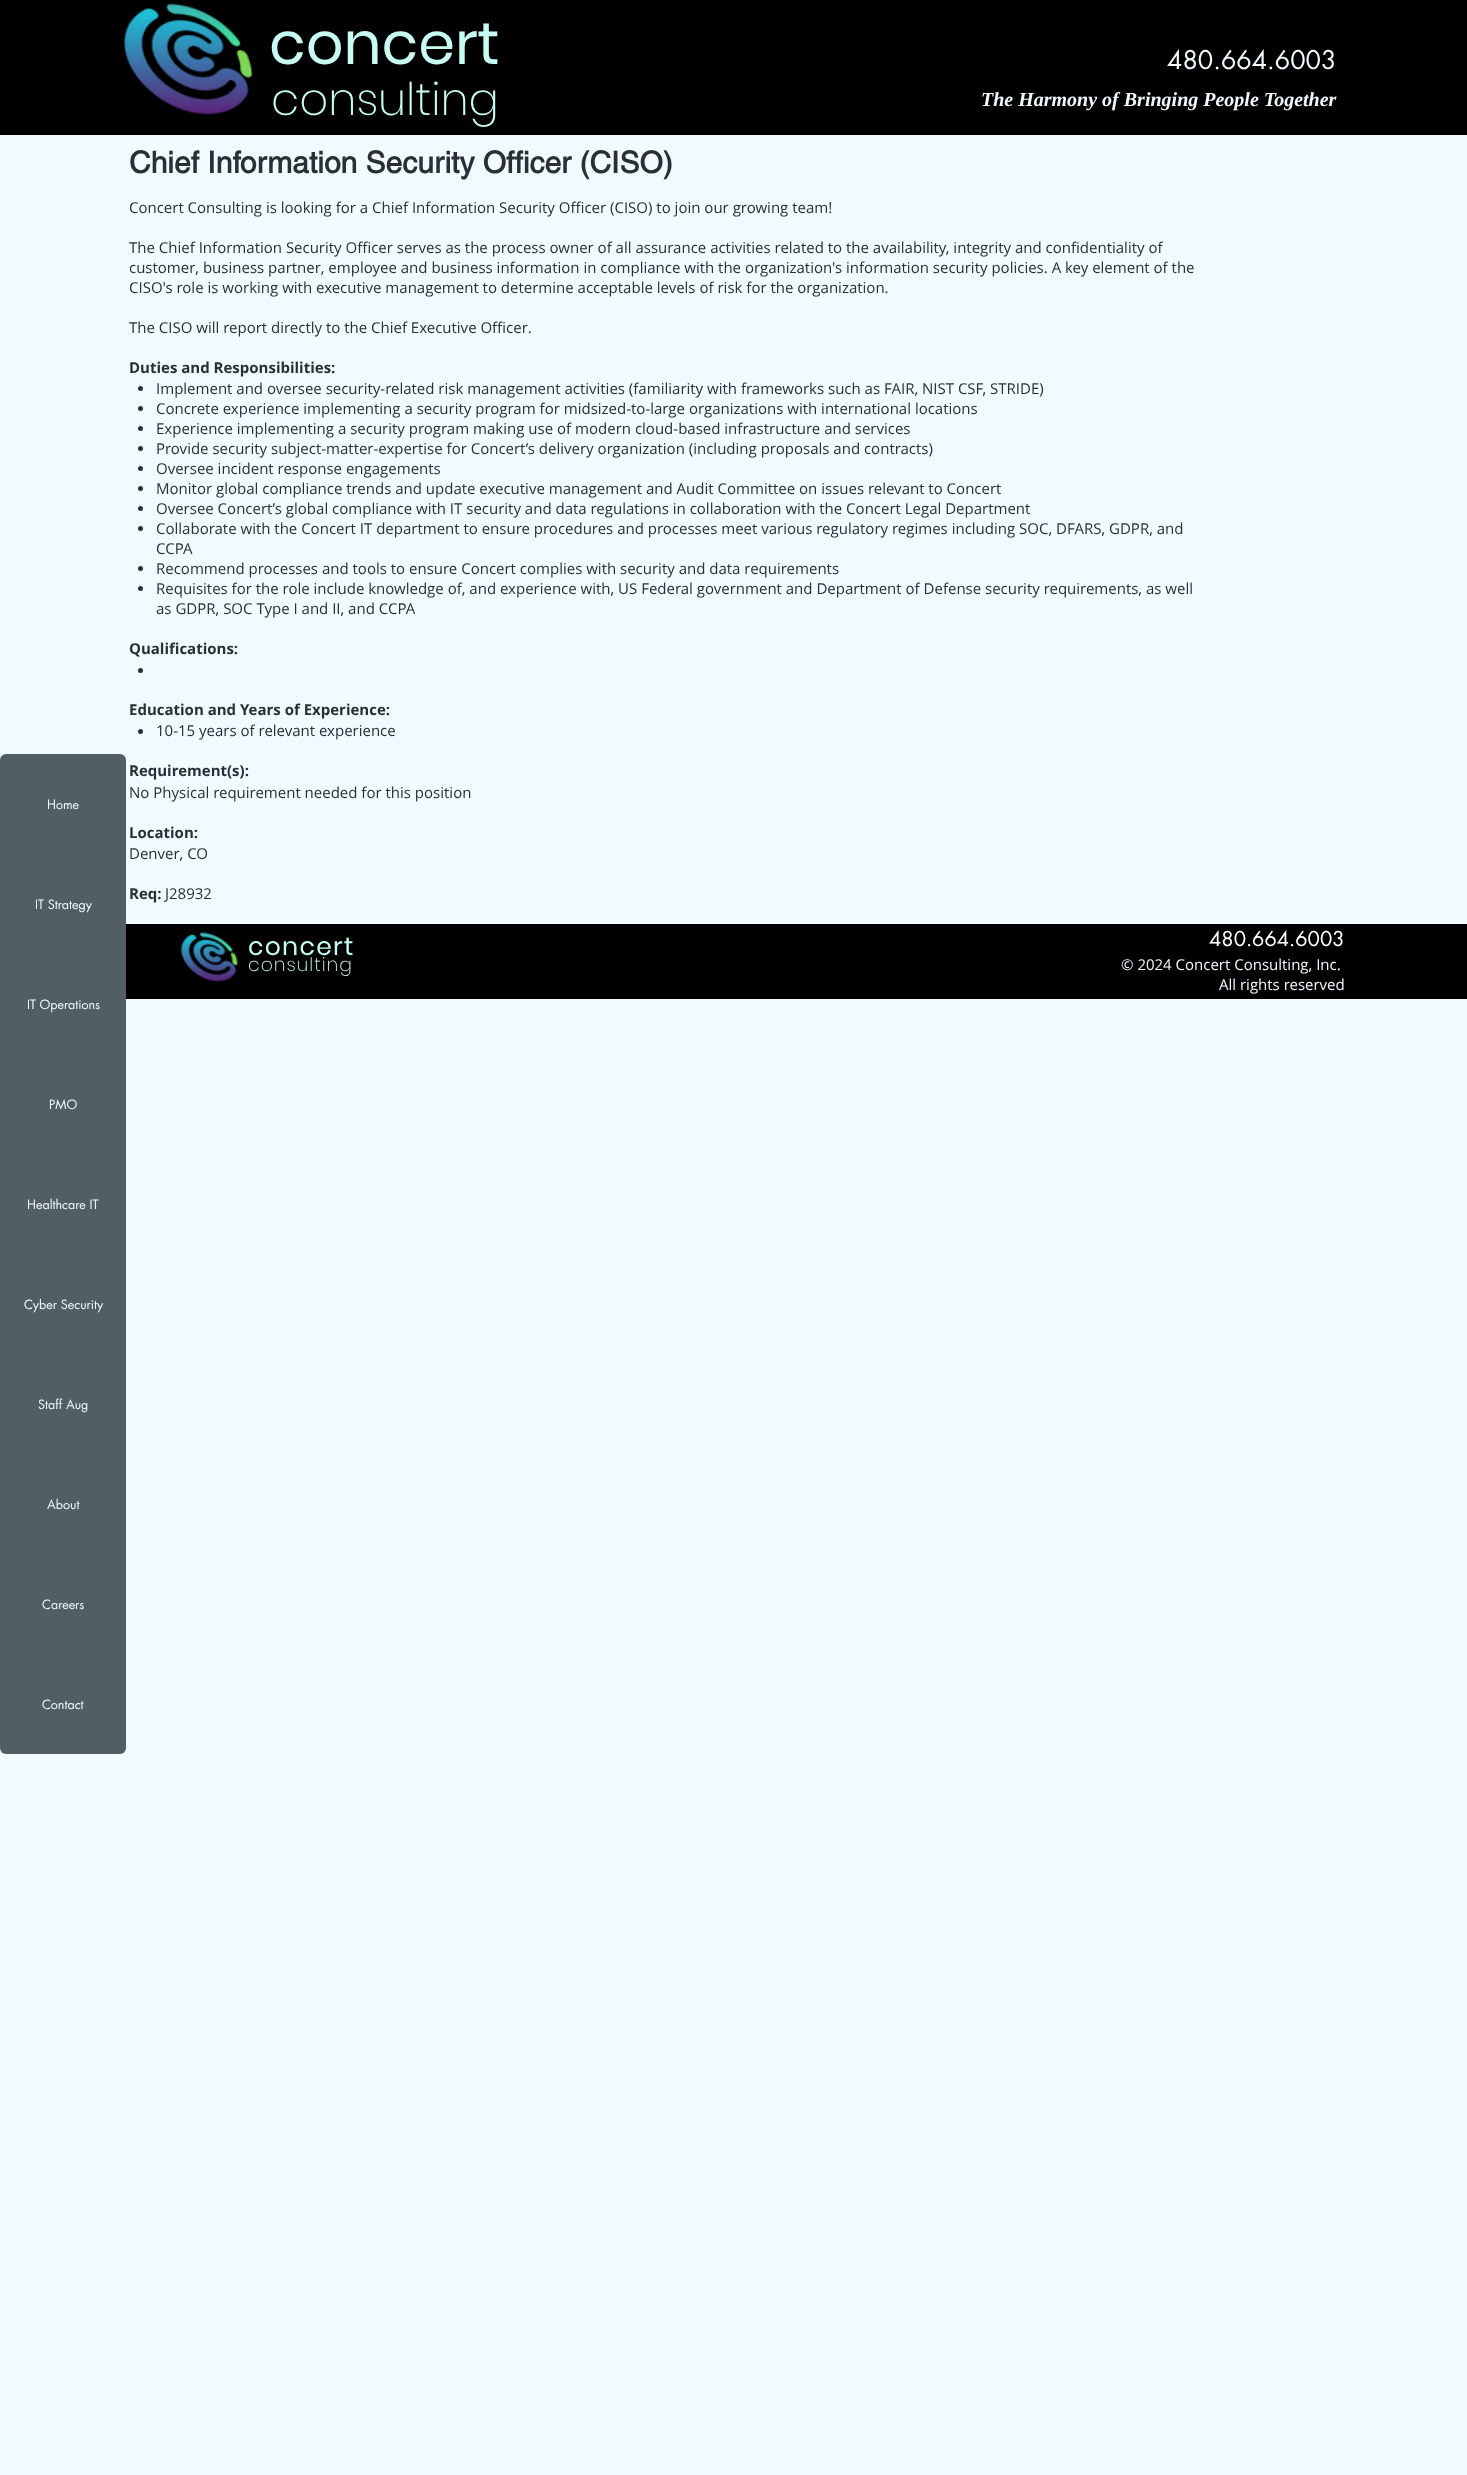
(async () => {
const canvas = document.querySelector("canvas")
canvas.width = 1467
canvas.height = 2475
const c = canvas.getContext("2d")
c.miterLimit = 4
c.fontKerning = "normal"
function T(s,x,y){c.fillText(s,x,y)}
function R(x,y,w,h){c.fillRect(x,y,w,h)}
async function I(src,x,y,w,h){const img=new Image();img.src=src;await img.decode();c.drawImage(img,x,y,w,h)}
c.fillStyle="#f0faff"
R(0,0,1467,2475)
c.fillStyle="#000"
R(0,0,1467,135)
await I("1.png",123,3,130,112)
c.font="59px Poppins"
c.fillStyle="#c7fcf2"
T("concert",269,64)
c.font="200 45px Poppins"
T("consulting",271,115)
c.font="25px futura"
c.fillStyle="#f0faff"
T("480.664.6003",1167,69)
c.font="italic bold 20px Liberation Serif"
T("The Harmony of Bringing People Together",981,106)
c.font="bold 30px helvetica"
c.fillStyle="#292f33"
T("Chief Information Security Officer (CISO)",129,173)
c.font="15px Open Sans"
T("Concert Consulting is looking for a Chief Information Security Officer (CISO) to join our growing team!",129,213)
T("The Chief Information Security Officer serves as the process owner of all assurance activities related to the availability, integrity and confidentiality of",129,253)
T("customer, business partner, employee and business information in compliance with the organization's information security policies. A key element of the",129,273)
T("CISO's role is working with executive management to determine acceptable levels of risk for the organization.",129,293)
T("The CISO will report directly to the Chief Executive Officer.",129,333)
c.font="bold 15px Open Sans"
T("Duties and Responsibilities:",129,373)
c.beginPath()
c.arc(140.5,388.5,2.5,0,7)
c.fill()
c.font="15px Open Sans"
T("Implement and oversee security-related risk management activities (familiarity with frameworks such as FAIR, NIST CSF, STRIDE)",156,394)
c.beginPath()
c.arc(140.5,408.5,2.5,0,7)
c.fill()
T("Concrete experience implementing a security program for midsized-to-large organizations with international locations",156,414)
c.beginPath()
c.arc(140.5,428.5,2.5,0,7)
c.fill()
T("Experience implementing a security program making use of modern cloud-based infrastructure and services",156,434)
c.beginPath()
c.arc(140.5,448.5,2.5,0,7)
c.fill()
T("Provide security subject-matter-expertise for Concert’s delivery organization (including proposals and contracts)",156,454)
c.beginPath()
c.arc(140.5,468.5,2.5,0,7)
c.fill()
T("Oversee incident response engagements",156,474)
c.beginPath()
c.arc(140.5,488.5,2.5,0,7)
c.fill()
T("Monitor global compliance trends and update executive management and Audit Committee on issues relevant to Concert",156,494)
c.beginPath()
c.arc(140.5,508.5,2.5,0,7)
c.fill()
T("Oversee Concert’s global compliance with IT security and data regulations in collaboration with the Concert Legal Department",156,514)
c.beginPath()
c.arc(140.5,528.5,2.5,0,7)
c.fill()
T("Collaborate with the Concert IT department to ensure procedures and processes meet various regulatory regimes including SOC, DFARS, GDPR, and",156,534)
T("CCPA",156,554)
c.beginPath()
c.arc(140.5,568.5,2.5,0,7)
c.fill()
T("Recommend processes and tools to ensure Concert complies with security and data requirements",156,574)
c.beginPath()
c.arc(140.5,588.5,2.5,0,7)
c.fill()
T("Requisites for the role include knowledge of, and experience with, US Federal government and Department of Defense security requirements, as well",156,594)
T("as GDPR, SOC Type I and II, and CCPA",156,614)
c.font="bold 15px Open Sans"
T("Qualifications:",129,654)
c.beginPath()
c.arc(140.5,670.5,2.5,0,7)
c.fill()
T("Education and Years of Experience:",129,715)
c.beginPath()
c.arc(140.5,731.5,2.5,0,7)
c.fill()
c.font="15px Open Sans"
T("10-15 years of relevant experience",156,736)
c.font="bold 15px Open Sans"
T("Requirement(s):",129,776)
c.font="15px Open Sans"
T("No Physical requirement needed for this position",129,798)
c.font="bold 15px Open Sans"
T("Location:",129,838)
c.font="15px Open Sans"
T("Denver, CO",129,859)
c.font="bold 15px Open Sans"
T("Req:",129,899)
c.font="15px Open Sans"
T("J28932",165,899)
c.fillStyle="#515e65"
c.beginPath()
c.roundRect(0,754,126,100,[6,6,0,0])
c.fill()
c.font="12.5px futura"
c.fillStyle="#f0faff"
T("Home",47,809)
c.fillStyle="#515e65"
R(0,854,126,800)
c.fillStyle="#f0faff"
T("IT Strategy",35,909)
T("IT Operations",27,1009)
T("PMO",49,1109)
T("Healthcare IT",27,1209)
T("Cyber Security",24,1309)
T("Staff Aug",38,1409)
T("About",47,1509)
T("Careers",42,1609)
c.fillStyle="#515e65"
c.beginPath()
c.roundRect(0,1654,126,100,[0,0,6,6])
c.fill()
c.fillStyle="#f0faff"
T("Contact",42,1709)
c.fillStyle="#000"
R(126,924,1341,75)
await I("2.png",181,932,57,50)
c.letterSpacing="1.25px"
c.font="25px Poppins"
c.fillStyle="#c7fcf2"
T("concert",248,955)
c.letterSpacing="1px"
c.font="200 18.75px Poppins"
T("consulting",248,971)
c.letterSpacing="0px"
c.font="20px futura"
c.fillStyle="#fff"
T("480.664.6003",1209,946)
c.font="15px Open Sans"
c.fillStyle="#f0faff"
T("© 2024 Concert Consulting, Inc.",1121,970)
T("All rights reserved",1219,990)
})()
